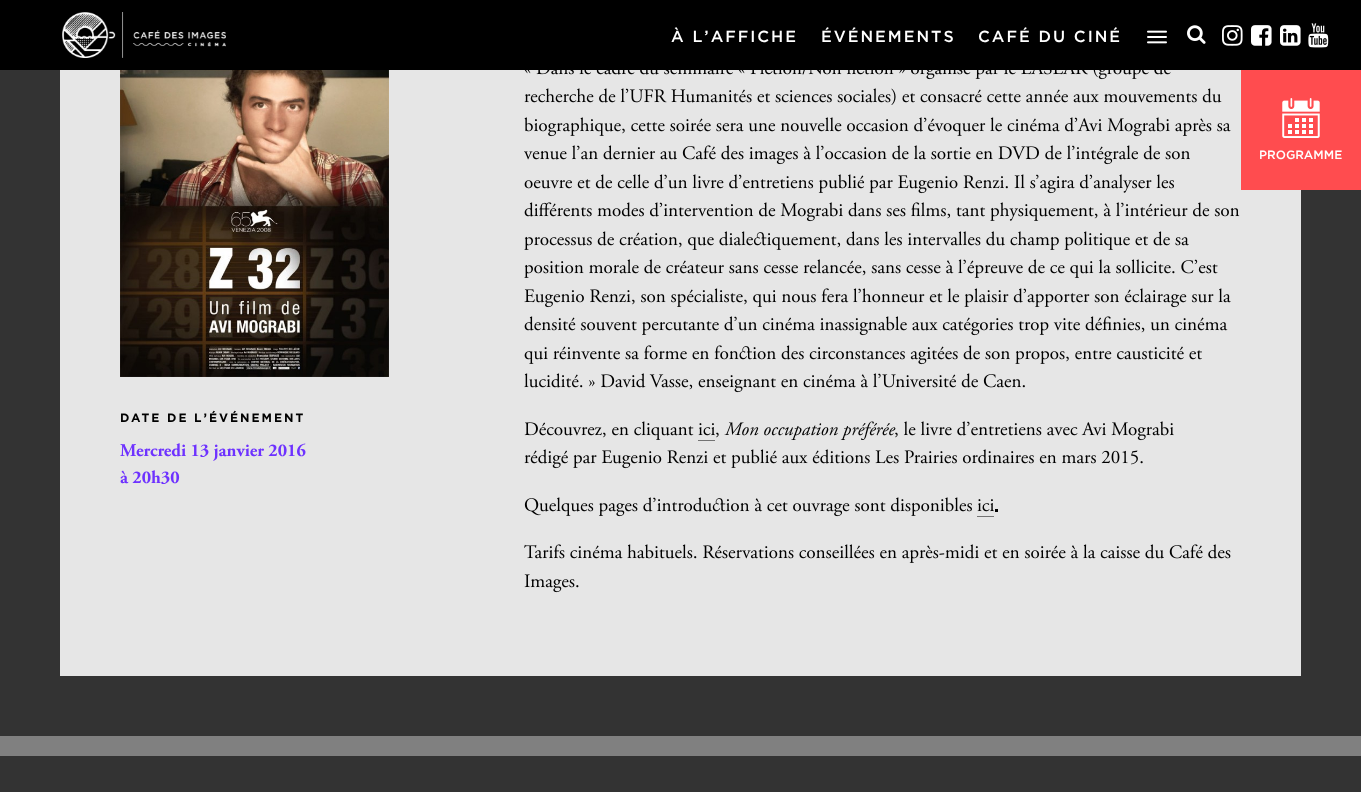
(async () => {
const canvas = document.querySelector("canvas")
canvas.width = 1361
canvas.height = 792
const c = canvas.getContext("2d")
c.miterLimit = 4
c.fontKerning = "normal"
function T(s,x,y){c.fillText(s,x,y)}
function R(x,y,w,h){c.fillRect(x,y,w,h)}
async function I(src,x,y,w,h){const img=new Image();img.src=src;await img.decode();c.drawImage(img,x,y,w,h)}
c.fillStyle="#808080"
R(0,0,1361,792)
c.fillStyle="#000"
R(0,0,1361,70)
await I("1.png",62,12,164,46)
c.letterSpacing="2px"
c.font="500 16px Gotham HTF"
c.fillStyle="#fff"
T("À L’AFFICHE",671,42)
T("ÉVÉNEMENTS",821,42)
T("CAFÉ DU CINÉ",978,42)
await I("2.png",1147,30,20,14)
await I("3.png",1187,25,19,19)
await I("4.png",1222,25,21,21)
await I("5.png",1251,25,21,21)
await I("6.png",1280,25,21,21)
await I("7.png",1308,23,21,25)
c.fillStyle="#333"
R(0,70,1361,666)
c.fillStyle="#e6e6e6"
R(60,70,1241,606)
c.fillStyle="#ff4c4f"
R(1241,70,120,120)
await I("8.png",1282,98,38,40)
c.letterSpacing="0px"
c.font="500 12px Gotham HTF"
c.fillStyle="#fff"
T("PROGRAMME",1259,159)
await I("9.png",120,70,269,307)
c.letterSpacing="2px"
c.font="bold 12px Gotham HTF"
c.fillStyle="#000"
T("DATE DE L’ÉVÉNEMENT",120,422)
c.letterSpacing="0px"
c.font="bold 18px Adobe Garamond"
c.fillStyle="#6e32ff"
T("Mercredi 13 janvier 2016",120,456)
T("à 20h30",120,483)
await I("10.png",524,70,647,10)
await I("11.png",524,88,698,17)
await I("12.png",524,117,707,20)
await I("13.png",524,145,666,20)
await I("14.png",524,174,650,20)
await I("15.png",524,202,716,20)
await I("16.png",524,231,665,19)
await I("17.png",524,259,694,19)
await I("18.png",524,288,707,20)
await I("19.png",524,316,704,20)
await I("20.png",524,345,678,20)
await I("21.png",524,373,501,20)
await I("22.png",524,421,170,19)
await I("23.png",698,423,17,13)
await I("24.png",716,432,3,6)
c.font="italic 19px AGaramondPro"
c.fillStyle="#000"
T("Mon occupation préférée",725,435)
await I("25.png",895,421,279,20)
c.fillStyle="#737373"
R(698,440,17,1)
await I("26.png",524,449,619,20)
await I("27.png",524,497,448,20)
await I("23.png",977,499,17,13)
c.fillStyle="#000"
R(995,509,3,3)
c.fillStyle="#737373"
R(977,516,17,1)
await I("28.png",524,544,707,19)
await I("29.png",524,574,55,19)
c.fillStyle="#333"
R(0,756,1361,36)
})()
